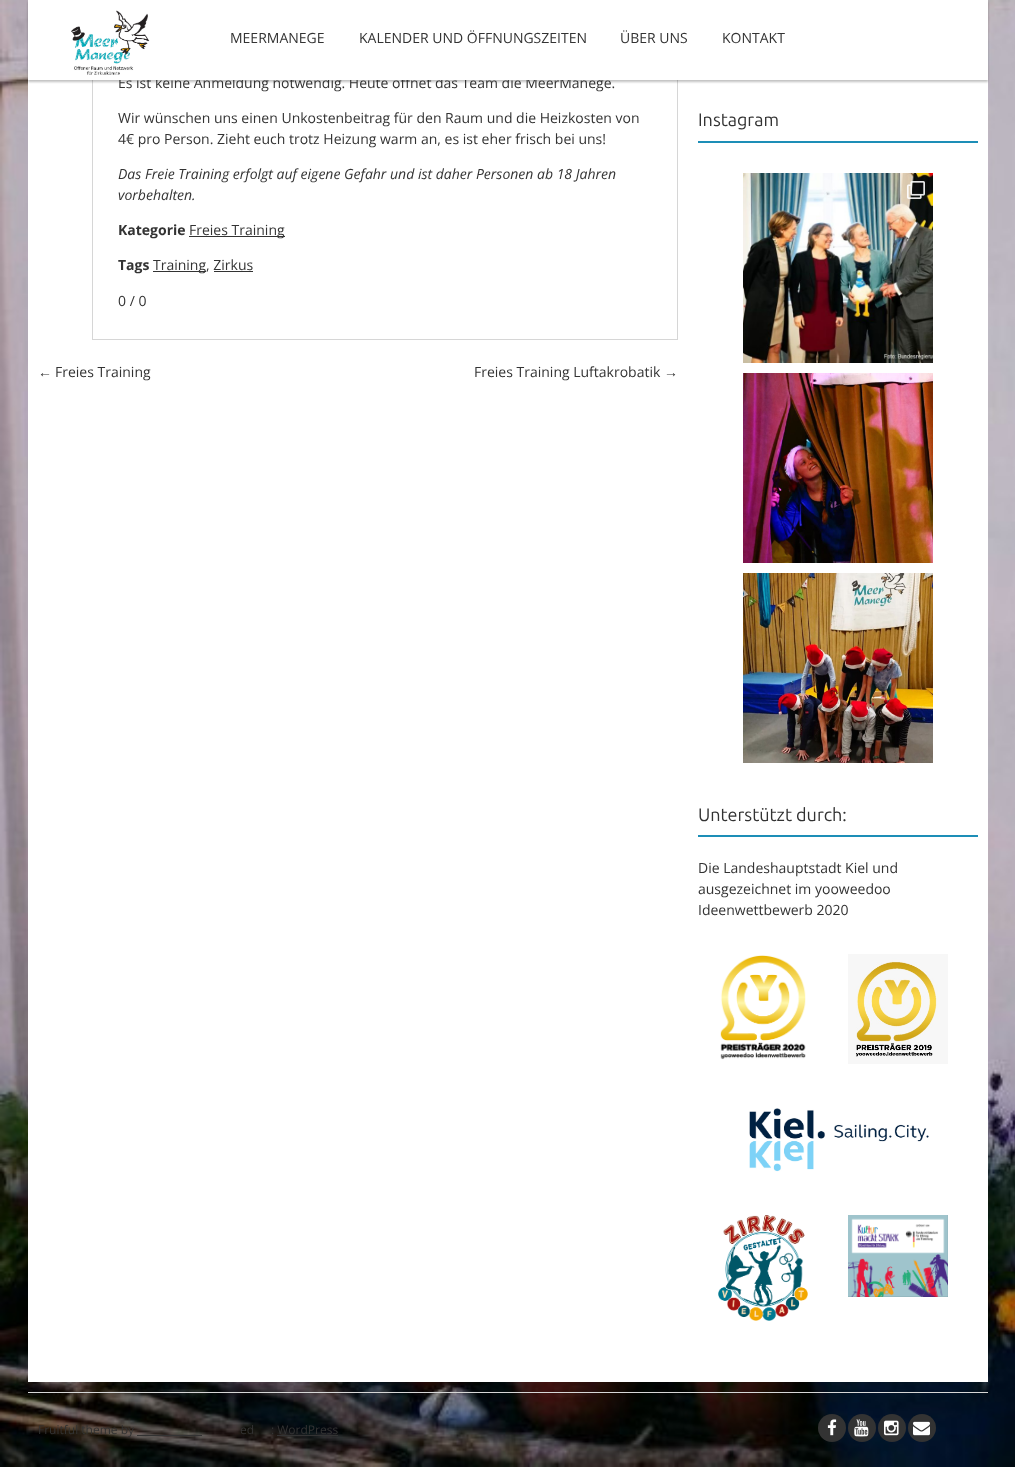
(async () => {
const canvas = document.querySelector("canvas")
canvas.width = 1015
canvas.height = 1467
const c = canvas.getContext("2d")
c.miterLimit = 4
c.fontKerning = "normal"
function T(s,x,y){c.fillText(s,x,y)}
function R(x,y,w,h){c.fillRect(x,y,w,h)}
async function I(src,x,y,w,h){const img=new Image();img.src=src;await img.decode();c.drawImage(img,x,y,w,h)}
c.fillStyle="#fff"
R(0,0,1015,1467)
await I("1.png",0,0,1015,1467)
R(28,80,960,1302)
c.strokeStyle="#d6d6d6"
c.strokeRect(92.5,-.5,585,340)
c.fillStyle="#3232324d"
c.filter="blur(1px)"
c.beginPath()
c.rect(28,2,960,80)
c.fill()
c.filter="none"
c.font="14px Open Sans"
c.fillStyle="#333"
T("Es ist keine Anmeldung notwendig. Heute öffnet das Team die MeerManege.",118,88)
c.fillStyle="#fff"
R(28,0,960,80)
await I("2.png",71,10,79,65)
c.fillStyle="#333"
T("MEERMANEGE",230,43)
T("KALENDER UND ÖFFNUNGSZEITEN",359,43)
T("ÜBER UNS",620,43)
T("KONTAKT",722,43)
T("Wir wünschen uns einen Unkostenbeitrag für den Raum und die Heizkosten von",118,123)
T("4€ pro Person. Zieht euch trotz Heizung warm an, es ist eher frisch bei uns!",118,144)
c.font="italic 14px Open Sans"
T("Das Freie Training erfolgt auf eigene Gefahr und ist daher Personen ab 18 Jahren",118,179)
T("vorbehalten.",118,200)
c.font="bold 14px Open Sans"
T("Kategorie",118,235)
R(189,236,96,1)
c.font="14px Open Sans"
T("Freies Training",189,235)
c.font="bold 14px Open Sans"
T("Tags",118,270)
R(153,271,53,1)
c.font="14px Open Sans"
T("Training, Zirkus",153,270)
R(214,271,39,1)
T("0 / 0",118,306)
c.font="14px Liberation Sans"
T("←",38,377)
c.font="14px Open Sans"
T("Freies Training",55,377)
T("Freies Training Luftakrobatik",474,377)
c.font="14px Liberation Sans"
T("→",664,377)
c.fillStyle="#1d8eb7"
R(698,141,280,2)
c.font="18px Ubuntu"
c.fillStyle="#333"
T("Instagram",698,126)
await I("3.png",743,173,190,190)
await I("4.png",907,181,18,18)
await I("5.png",743,373,190,190)
await I("6.png",743,573,190,190)
c.fillStyle="#1d8eb7"
R(698,835,280,2)
c.fillStyle="#333"
T("Unterstützt durch:",698,821)
c.font="14px Open Sans"
T("Die Landeshauptstadt Kiel und",698,873)
T("ausgezeichnet im yooweedoo",698,894)
T("Ideenwettbewerb 2020",698,915)
await I("7.png",720,955,86,105)
await I("8.png",848,954,100,110)
await I("9.png",749,1108,180,64)
await I("10.png",718,1215,90,106)
await I("11.png",848,1215,100,82)
c.fillStyle="#d6d6d6"
R(28,1392,960,1)
c.font="12px Open Sans"
c.fillStyle="#333"
T("Fruitful theme by",38,1434)
R(137,1435,65,1)
T("ed",240,1434)
T(": WordPress",271,1434)
R(277,1435,61,1)
c.beginPath()
c.arc(832,1428,14,0,7)
c.fill()
await I("12.png",827,1419,10,17)
c.beginPath()
c.arc(862,1428,14,0,7)
c.fill()
await I("13.png",854,1419,15,18)
c.beginPath()
c.arc(892,1428,14,0,7)
c.fill()
await I("14.png",884,1420,15,16)
c.beginPath()
c.arc(922,1428,14,0,7)
c.fill()
await I("15.png",913,1421,17,15)
})()
